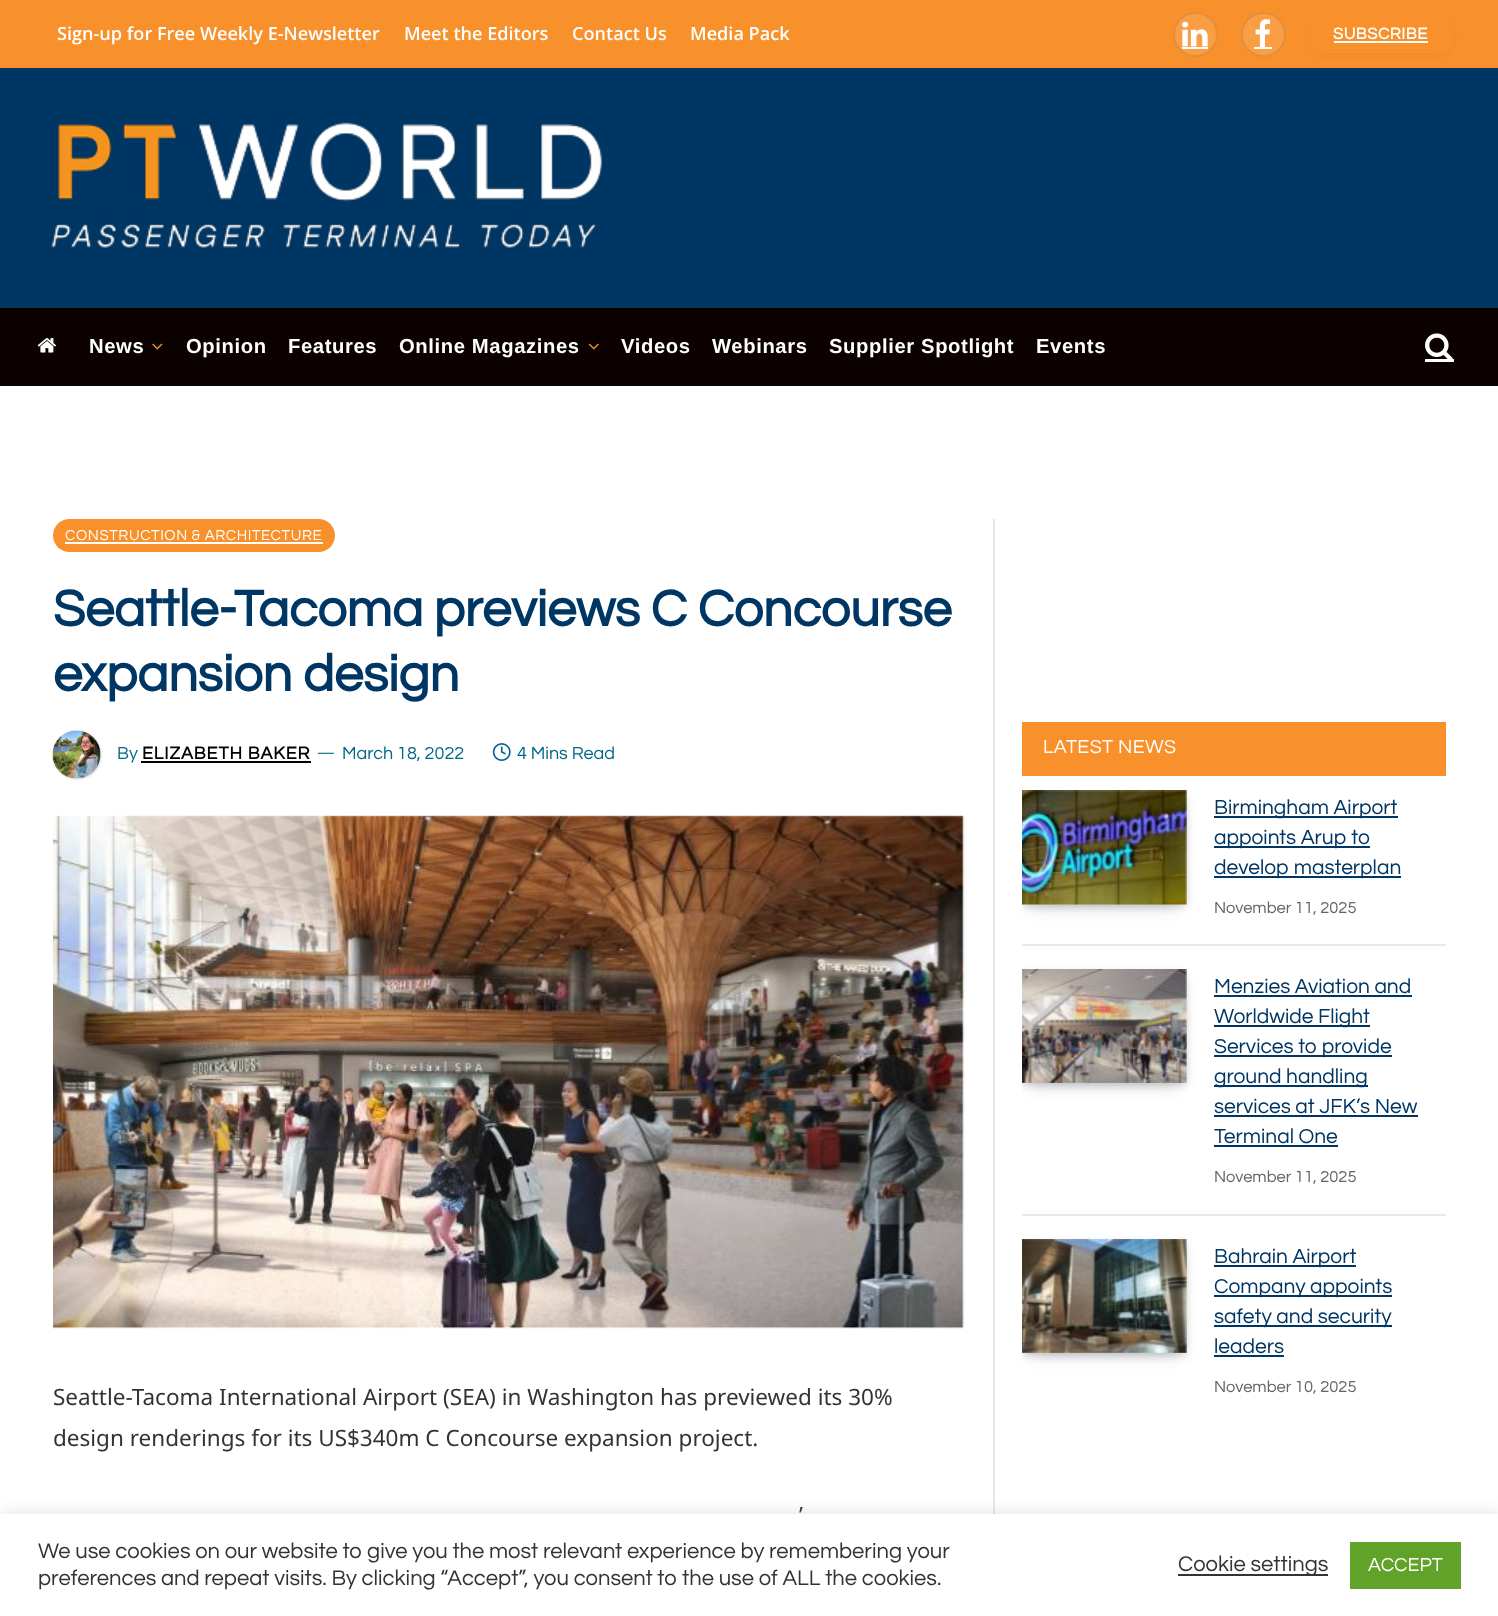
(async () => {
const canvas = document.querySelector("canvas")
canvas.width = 1498
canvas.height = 1616
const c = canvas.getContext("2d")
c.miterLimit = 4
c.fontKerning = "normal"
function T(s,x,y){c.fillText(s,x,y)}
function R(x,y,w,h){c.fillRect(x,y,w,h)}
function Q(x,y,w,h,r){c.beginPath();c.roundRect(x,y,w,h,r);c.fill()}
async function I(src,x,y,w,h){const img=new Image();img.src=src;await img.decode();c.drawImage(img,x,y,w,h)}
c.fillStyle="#fff"
R(0,0,1498,1616)
c.fillStyle="#f8912b"
R(0,0,1498,68)
c.font="600 18.1px Open Sans"
c.fillStyle="#fff"
T("Sign-up for Free Weekly E-Newsletter",57,40)
T("Meet the Editors",404,40)
T("Contact Us",572,40)
T("Media Pack",690,40)
c.fillStyle="#f99e44"
c.beginPath()
c.arc(1195.5,34.5,22.5,0,7)
c.fill()
c.beginPath()
c.arc(1195.5,34.5,21.5,0,7)
c.strokeStyle="#00000017"
c.lineWidth=2
c.stroke()
await I("1.png",1182,21,26,26)
c.fillStyle="#fff"
R(1182,47,26,2)
c.fillStyle="#f99e44"
c.beginPath()
c.arc(1263.5,34.5,22.5,0,7)
c.fill()
c.beginPath()
c.arc(1263.5,34.5,21.5,0,7)
c.stroke()
await I("2.png",1255,19,16,28)
c.fillStyle="#fff"
R(1254,47,18,2)
c.fillStyle="#00000029"
c.filter="blur(5px)"
c.beginPath()
c.roundRect(1314,24,134,26,9)
c.fill()
c.filter="none"
c.fillStyle="#f8912b"
Q(1308,15,146,38,15)
c.letterSpacing="0.5px"
c.font="bold 16.5px Questrial"
c.fillStyle="#fff"
T("SUBSCRIBE",1333,39)
R(1334,41,94,2)
c.fillStyle="#003664"
R(0,68,1498,240)
await I("3.png",51,122,551,126)
c.fillStyle="#0a0100"
R(0,308,1498,78)
await I("4.png",37,338,19,15)
c.letterSpacing="0.6px"
c.font="bold 20.25px Liberation Sans"
c.fillStyle="#fff"
T("News",89,353)
await I("5.png",152,343,11,7)
T("Opinion",186,353)
T("Features",288,353)
T("Online Magazines",399,353)
await I("6.png",588,343,11,7)
T("Videos",621,353)
T("Webinars",712,353)
T("Supplier Spotlight",829,353)
T("Events",1036,353)
await I("7.png",1425,333,28,26)
R(1425,359,29,3)
c.fillStyle="#f8912b"
Q(53,519,282,33,16.5)
c.font="15px Questrial"
c.fillStyle="#fff"
T("CONSTRUCTION & ARCHITECTURE",65,540)
R(65,542,258,2)
c.letterSpacing="-0.25px"
c.font="bold 52.5px Questrial"
c.fillStyle="#003664"
T("Seattle-Tacoma previews C Concourse",53,626)
T("expansion design",53,691)
c.fillStyle="#00000033"
c.filter="blur(1px)"
c.beginPath()
c.roundRect(53,731,48,48,24)
c.fill()
c.filter="none"
await I("8.png",52,730,49,49)
c.letterSpacing="0px"
c.font="18px Questrial"
c.fillStyle="#006788"
T("By",117,759)
c.letterSpacing="0.9px"
c.font="bold 18px Questrial"
c.fillStyle="#000"
T("ELIZABETH BAKER",142,759)
R(141,761,170,2)
c.letterSpacing="0px"
c.font="16px Questrial"
c.fillStyle="#006788"
T("—",317,758)
c.font="18px Questrial"
T("March 18, 2022",342,759)
await I("9.png",492,743,19,18)
T("4 Mins Read",517,759)
await I("10.png",53,815,912,514)
c.font="22.5px Noto Sans"
c.fillStyle="#333"
T("Seattle-Tacoma International Airport (SEA) in Washington has previewed its 30%",53,1405)
T("design renderings for its US$340m C Concourse expansion project.",53,1446)
T("’",799,1523)
c.fillStyle="#e8e8e8"
R(993,519,2,995)
c.fillStyle="#f8912b"
R(1022,722,424,54)
c.letterSpacing="0.4px"
c.font="19.5px Questrial"
c.fillStyle="#fff"
T("LATEST NEWS",1043,753)
c.save()
c.beginPath()
c.rect(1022,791,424,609)
c.clip()
c.fillStyle="#070a1933"
c.filter="blur(9px)"
c.beginPath()
c.rect(1031,809,147,96)
c.fill()
c.filter="none"
c.filter="blur(4.5px)"
c.beginPath()
c.rect(1023,795,162,111)
c.fill()
c.filter="none"
c.restore()
await I("11.png",1022,790,165,115)
c.fillStyle="#003664"
R(1214,816,184,2)
c.letterSpacing="0px"
c.font="21px Questrial"
T("Birmingham Airport",1214,814)
R(1214,846,156,2)
T("appoints Arup to",1214,844)
R(1214,876,187,2)
T("develop masterplan",1214,874)
c.font="16.5px Questrial"
c.fillStyle="#636363"
T("November 11, 2025",1214,913)
c.fillStyle="#e8e8e8"
R(1022,944,424,2)
c.save()
c.beginPath()
c.rect(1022,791,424,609)
c.clip()
c.fillStyle="#070a1933"
c.filter="blur(9px)"
c.beginPath()
c.rect(1031,987,147,96)
c.fill()
c.filter="none"
c.filter="blur(4.5px)"
c.beginPath()
c.rect(1023,974,162,111)
c.fill()
c.filter="none"
c.restore()
await I("12.png",1022,969,165,114)
c.font="21px Questrial"
c.fillStyle="#003664"
T("Menzies Aviation and",1214,993)
R(1214,995,198,2)
R(1214,1025,156,2)
T("Worldwide Flight",1214,1023)
R(1214,1055,178,2)
T("Services to provide",1214,1053)
R(1214,1085,154,2)
T("ground handling",1214,1083)
T("services at JFK’s New",1214,1113)
R(1214,1115,204,2)
T("Terminal One",1214,1143)
R(1214,1145,124,2)
c.font="16.5px Questrial"
c.fillStyle="#636363"
T("November 11, 2025",1214,1182)
c.fillStyle="#e8e8e8"
R(1022,1214,424,2)
c.save()
c.beginPath()
c.rect(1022,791,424,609)
c.clip()
c.fillStyle="#070a1933"
c.filter="blur(9px)"
c.beginPath()
c.rect(1031,1257,147,96)
c.fill()
c.filter="none"
c.filter="blur(4.5px)"
c.beginPath()
c.rect(1023,1244,162,111)
c.fill()
c.filter="none"
c.restore()
await I("13.png",1022,1239,165,114)
c.fillStyle="#003664"
R(1214,1265,142,2)
c.font="21px Questrial"
T("Bahrain Airport",1214,1263)
R(1214,1295,178,2)
T("Company appoints",1214,1293)
R(1214,1325,178,2)
T("safety and security",1214,1323)
T("leaders",1214,1353)
R(1214,1355,70,2)
c.font="16.5px Questrial"
c.fillStyle="#636363"
T("November 10, 2025",1214,1392)
c.fillStyle="#acabab4d"
c.filter="blur(7.5px)"
c.beginPath()
c.rect(0,1512,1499,104)
c.fill()
c.filter="none"
c.fillStyle="#fff"
R(0,1514,1498,102)
c.font="22px Questrial"
c.fillStyle="#333"
T("We use cookies on our website to give you the most relevant experience by remembering your",38,1558)
T("preferences and repeat visits. By clicking “Accept”, you consent to the use of ALL the cookies.",38,1585)
R(1178,1574,150,2)
T("Cookie settings",1178,1571)
c.fillStyle="#61a229"
R(1350,1542,111,47)
c.font="19.5px Questrial"
c.fillStyle="#fff"
T("ACCEPT",1368,1571)
})()
